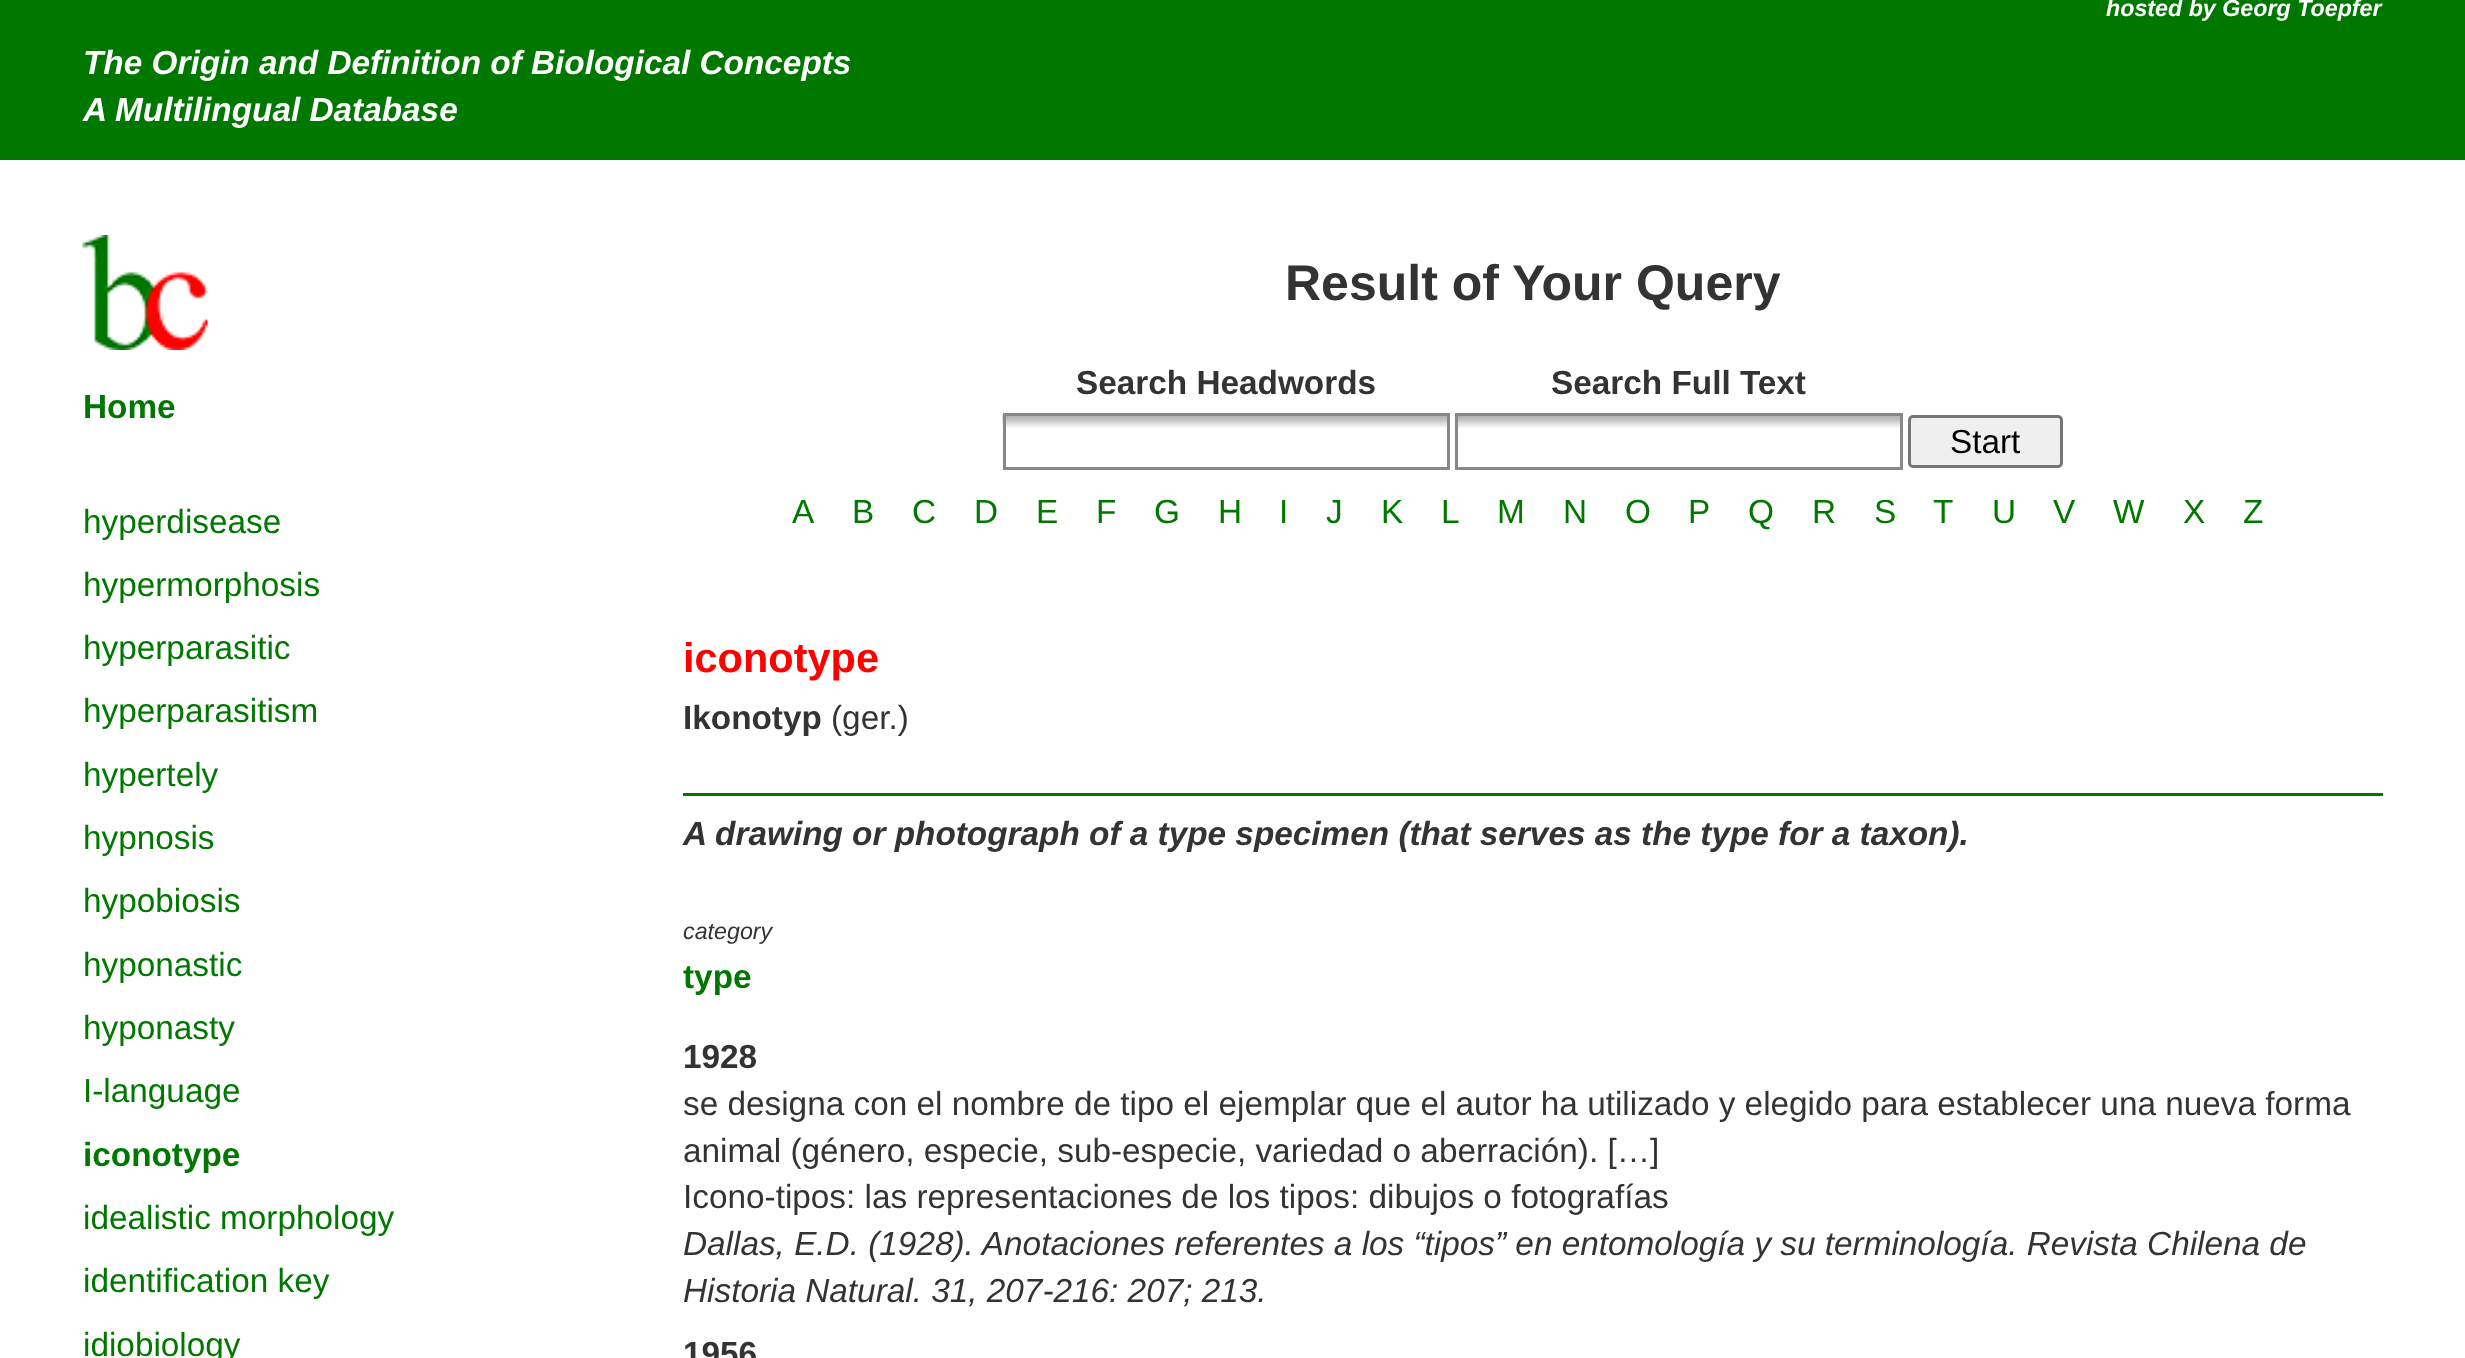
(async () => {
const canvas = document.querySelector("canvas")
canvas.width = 2465
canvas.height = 1358
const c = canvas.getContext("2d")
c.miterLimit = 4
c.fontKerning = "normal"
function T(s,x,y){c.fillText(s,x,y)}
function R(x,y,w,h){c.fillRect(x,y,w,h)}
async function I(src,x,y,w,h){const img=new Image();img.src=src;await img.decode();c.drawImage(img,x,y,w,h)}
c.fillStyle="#fff"
R(0,0,2465,1358)
c.fillStyle="#007800"
R(0,0,2465,160)
c.font="italic bold 23.25px Liberation Sans"
c.fillStyle="#fff"
T("hosted by Georg Toepfer",2106,16)
c.font="italic bold 33.33px Liberation Sans"
T("The Origin and Definition of Biological Concepts",83,74)
T("A Multilingual Database",83,121)
c.font="33.33px Liberation Sans"
c.fillStyle="#007800"
T("hyperdisease",83,533)
T("hypermorphosis",83,596)
T("hyperparasitic",83,659)
T("hyperparasitism",83,722)
T("hypertely",83,786)
T("hypnosis",83,849)
T("hypobiosis",83,912)
T("hyponastic",83,976)
T("hyponasty",83,1039)
T("I-language",83,1102)
c.font="bold 33.33px Liberation Sans"
T("iconotype",83,1166)
c.font="33.33px Liberation Sans"
T("idealistic morphology",83,1229)
T("identification key",83,1292)
T("idiobiology",83,1356)
c.font="bold 50px Liberation Sans"
c.fillStyle="#333"
T("Result of Your Query",1285,300)
c.font="bold 33.33px Liberation Sans"
T("Search Headwords",1076,394)
T("Search Full Text",1551,394)
await I("1.png",1002,415,445,13)
c.strokeStyle="#888"
c.lineWidth=3
c.strokeRect(1004.5,414.5,444,54)
await I("2.png",1458,416,442,12)
c.strokeRect(1456.5,414.5,445,54)
c.fillStyle="#efefef"
c.beginPath()
c.roundRect(1909.5,416.5,152,50,3.5)
c.fill()
c.strokeStyle="#767676"
c.stroke()
c.font="33.33px Liberation Sans"
c.fillStyle="#000"
T("Start",1950,453)
c.fillStyle="#007800"
T("A",792,523)
T("B",852,523)
T("C",912,523)
T("D",974,523)
T("E",1036,523)
T("F",1096,523)
T("G",1154,523)
T("H",1218,523)
T("I",1279,523)
T("J",1326,523)
T("K",1381,523)
T("L",1441,523)
T("M",1497,523)
T("N",1563,523)
T("O",1625,523)
T("P",1688,523)
T("Q",1748,523)
T("R",1812,523)
T("S",1874,523)
T("T",1933,523)
T("U",1992,523)
T("V",2053,523)
T("W",2113,523)
T("X",2183,523)
T("Z",2243,523)
c.font="bold 41.5px Liberation Sans"
c.fillStyle="#f00"
T("iconotype",683,672)
c.font="bold 33.33px Liberation Sans"
c.fillStyle="#333"
T("Ikonotyp",683,729)
c.font="33.33px Liberation Sans"
T("(ger.)",831,729)
c.fillStyle="#007800"
R(683,793,1700,3)
c.font="italic bold 33.33px Liberation Sans"
c.fillStyle="#333"
T("A drawing or photograph of a type specimen (that serves as the type for a taxon).",683,845)
c.font="italic 23.25px Liberation Sans"
T("category",683,939)
c.font="bold 33.33px Liberation Sans"
c.fillStyle="#007800"
T("type",683,988)
c.fillStyle="#333"
T("1928",683,1068)
c.font="33.33px Liberation Sans"
T("se designa con el nombre de tipo el ejemplar que el autor ha utilizado y elegido para establecer una nueva forma",683,1115)
T("animal (género, especie, sub-especie, variedad o aberración). […]",683,1162)
T("Icono-tipos: las representaciones de los tipos: dibujos o fotografías",683,1208)
c.font="italic 33.33px Liberation Sans"
T("Dallas, E.D. (1928). Anotaciones referentes a los “tipos” en entomología y su terminología. Revista Chilena de",683,1255)
T("Historia Natural. 31, 207-216: 207; 213.",683,1302)
c.font="bold 33.33px Liberation Sans"
T("1956",683,1365)
await I("3.png",82,235,126,115)
c.fillStyle="#007800"
T("Home",83,418)
})()
